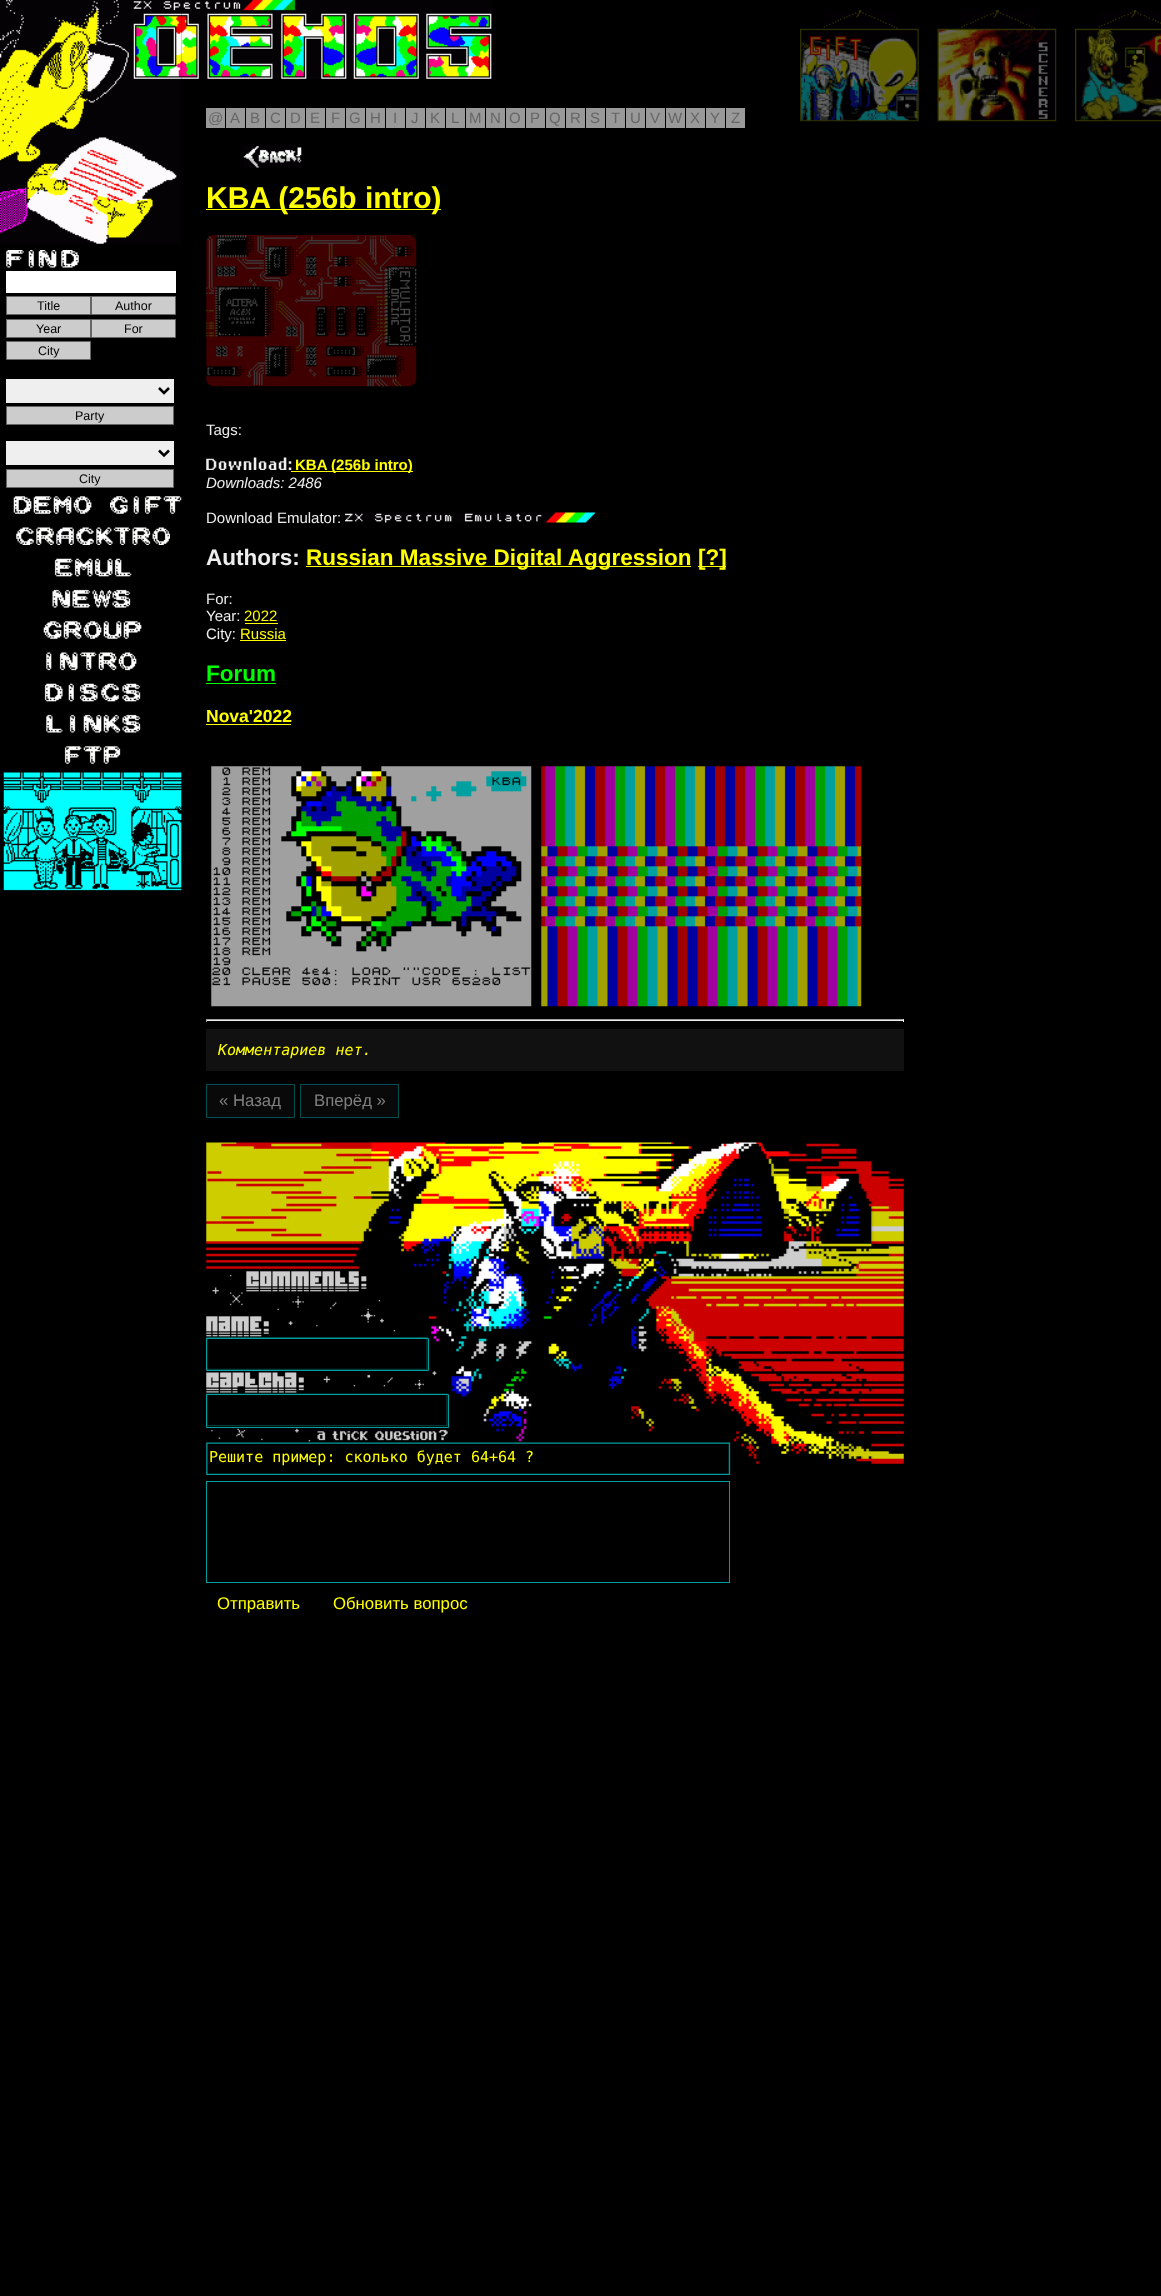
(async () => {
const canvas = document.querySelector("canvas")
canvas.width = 1161
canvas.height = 2296
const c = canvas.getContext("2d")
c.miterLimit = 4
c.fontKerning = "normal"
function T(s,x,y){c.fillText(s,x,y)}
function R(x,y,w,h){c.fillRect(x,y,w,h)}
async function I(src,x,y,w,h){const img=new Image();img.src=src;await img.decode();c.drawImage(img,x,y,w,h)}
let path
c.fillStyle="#000"
R(0,0,1161,2296)
await I("1.png",0,0,182,244)
await I("2.png",181,0,311,79)
await I("3.png",823,10,75,19)
await I("4.png",800,28,119,94)
await I("5.png",961,10,75,19)
await I("6.png",937,28,120,94)
await I("7.png",1098,10,63,18)
await I("8.png",1075,28,86,94)
c.fillStyle="#999"
R(206,108,19,20)
c.font="15px Liberation Sans"
c.fillStyle="#666"
T("@",208,123)
c.fillStyle="#999"
R(226,108,19,20)
c.fillStyle="#666"
T("A",230,123)
c.fillStyle="#999"
R(246,108,19,20)
c.fillStyle="#666"
T("B",250,123)
c.fillStyle="#999"
R(266,108,19,20)
c.fillStyle="#666"
T("C",270,123)
c.fillStyle="#999"
R(286,108,19,20)
c.fillStyle="#666"
T("D",290,123)
c.fillStyle="#999"
R(306,108,19,20)
c.fillStyle="#666"
T("E",310,123)
c.fillStyle="#999"
R(326,108,19,20)
c.fillStyle="#666"
T("F",331,123)
c.fillStyle="#999"
R(346,108,19,20)
c.fillStyle="#666"
T("G",349,123)
c.fillStyle="#999"
R(366,108,19,20)
c.fillStyle="#666"
T("H",370,123)
c.fillStyle="#999"
R(386,108,19,20)
c.fillStyle="#666"
T("I",393,123)
c.fillStyle="#999"
R(406,108,19,20)
c.fillStyle="#666"
T("J",411,123)
c.fillStyle="#999"
R(426,108,19,20)
c.fillStyle="#666"
T("K",430,123)
c.fillStyle="#999"
R(446,108,19,20)
c.fillStyle="#666"
T("L",451,123)
c.fillStyle="#999"
R(466,108,19,20)
c.fillStyle="#666"
T("M",469,123)
c.fillStyle="#999"
R(486,108,19,20)
c.fillStyle="#666"
T("N",490,123)
c.fillStyle="#999"
R(506,108,19,20)
c.fillStyle="#666"
T("O",509,123)
c.fillStyle="#999"
R(526,108,19,20)
c.fillStyle="#666"
T("P",530,123)
c.fillStyle="#999"
R(546,108,19,20)
c.fillStyle="#666"
T("Q",549,123)
c.fillStyle="#999"
R(566,108,19,20)
c.fillStyle="#666"
T("R",570,123)
c.fillStyle="#999"
R(586,108,19,20)
c.fillStyle="#666"
T("S",590,123)
c.fillStyle="#999"
R(606,108,19,20)
c.fillStyle="#666"
T("T",611,123)
c.fillStyle="#999"
R(626,108,19,20)
c.fillStyle="#666"
T("U",630,123)
c.fillStyle="#999"
R(646,108,19,20)
c.fillStyle="#666"
T("V",650,123)
c.fillStyle="#999"
R(666,108,19,20)
c.fillStyle="#666"
T("W",668,123)
c.fillStyle="#999"
R(686,108,19,20)
c.fillStyle="#666"
T("X",690,123)
c.fillStyle="#999"
R(706,108,19,20)
c.fillStyle="#666"
T("Y",710,123)
c.fillStyle="#999"
R(726,108,19,20)
c.fillStyle="#666"
T("Z",731,123)
await I("9.png",6,250,73,18)
c.fillStyle="#fff"
R(6,271,170,22)
c.fillStyle="#ccc"
c.beginPath()
c.rect(6.5,296.5,84,18)
c.fill()
c.strokeStyle="#666"
c.stroke()
c.font="12.5px Liberation Sans"
c.fillStyle="#000"
T("Title",37,310)
c.fillStyle="#ccc"
c.beginPath()
c.rect(91.5,296.5,84,18)
c.fill()
c.stroke()
c.fillStyle="#000"
T("Author",115,310)
c.fillStyle="#ccc"
c.beginPath()
c.rect(6.5,319.5,84,18)
c.fill()
c.stroke()
c.fillStyle="#000"
T("Year",36,333)
c.fillStyle="#ccc"
c.beginPath()
c.rect(91.5,319.5,84,18)
c.fill()
c.stroke()
c.fillStyle="#000"
T("For",124,333)
c.fillStyle="#ccc"
c.beginPath()
c.rect(6.5,341.5,84,18)
c.fill()
c.stroke()
c.fillStyle="#000"
T("City",38,355)
await I("10.png",243,146,59,22)
c.fillStyle="#ff0"
R(206,209,235,1)
c.font="bold 30px Liberation Sans"
T("KBA (256b intro)",206,208)
await I("11.png",206,235,211,152)
c.font="15px Liberation Sans"
c.fillStyle="#eee"
T("Tags:",206,435)
await I("12.png",206,457,86,13)
c.fillStyle="#ff0"
R(291,471,122,1)
c.font="bold 15px Liberation Sans"
T("KBA (256b intro)",295,470)
c.font="italic 15px Liberation Sans"
c.fillStyle="#eee"
T("Downloads: 2486",206,488)
c.font="15px Liberation Sans"
T("Download Emulator:",206,523)
await I("13.png",345,512,250,11)
c.font="bold 22.5px Liberation Sans"
T("Authors:",206,565)
c.fillStyle="#ff0"
R(306,566,385,1)
T("Russian Massive Digital Aggression",306,565)
R(698,566,28,1)
T("[?]",698,565)
c.font="15px Liberation Sans"
c.fillStyle="#eee"
T("For:",206,604)
T("Year:",206,621)
c.fillStyle="#ff0"
T("2022",244,621)
R(245,623,33,1)
c.fillStyle="#eee"
T("City:",206,639)
c.fillStyle="#ff0"
T("Russia",240,639)
R(240,640,46,1)
c.font="bold 22.5px Liberation Sans"
c.fillStyle="#00fe00"
T("Forum",206,681)
R(206,683,70,1)
c.font="bold 17.5px Liberation Sans"
c.fillStyle="#ff0"
T("Nova'2022",206,722)
R(206,724,85,1)
await I("14.png",211,766,321,241)
await I("15.png",541,766,321,241)
c.fillStyle="#9f9f9f"
R(206,1019,698,1)
c.fillStyle="#eee"
R(903,1019,1,3)
R(206,1020,698,1)
c.fillStyle="#9f9f9f"
R(206,1019,1,3)
c.fillStyle="#111"
R(206,1029,698,42)
c.font="italic 15px DejaVu Sans Mono"
c.fillStyle="#ff0"
T("Комментариев нет.",218,1055)
c.fillStyle="#090909"
c.beginPath()
c.rect(206.5,1084.5,88,33)
c.fill()
c.strokeStyle="#005050"
c.stroke()
c.font="16.75px Liberation Sans"
c.fillStyle="#808080"
T("« Назад",219,1106)
c.fillStyle="#090909"
c.beginPath()
c.rect(300.5,1084.5,98,33)
c.fill()
c.stroke()
c.fillStyle="#808080"
T("Вперёд »",314,1106)
await I("16.png",206,1142,698,333)
c.fillStyle="#00000099"
c.beginPath()
c.rect(206.5,1338.5,222,32)
c.fill()
c.strokeStyle="#009f9f"
c.stroke()
c.beginPath()
c.rect(206.5,1394.5,242,33)
c.fill()
c.stroke()
c.font="15px DejaVu Sans Mono"
c.fillStyle="#ff0"
T("Решите пример: сколько будет 64+64 ?",209,1462)
c.strokeRect(206.5,1481.5,523,101)
c.font="16.75px Liberation Sans"
T("Отправить",217,1609)
T("Обновить вопрос",333,1609)
c.fillStyle="#efefef"
R(6,379,168,24)
path = new Path2D("M159 388l5 5l5-5")
c.strokeStyle="#000"
c.lineWidth=2.5
c.stroke(path)
c.fillStyle="#ccc"
c.beginPath()
c.rect(6.5,406.5,167,18)
c.fill()
c.strokeStyle="#666"
c.lineWidth=1
c.stroke()
c.font="12.5px Liberation Sans"
c.fillStyle="#000"
T("Party",75,420)
c.fillStyle="#efefef"
R(6,441,168,24)
path = new Path2D("M159 450.5l5 5l5-5")
c.strokeStyle="#000"
c.lineWidth=2.5
c.stroke(path)
c.fillStyle="#ccc"
c.beginPath()
c.rect(6.5,469.5,167,18)
c.fill()
c.strokeStyle="#666"
c.lineWidth=1
c.stroke()
c.fillStyle="#000"
T("City",79,483)
await I("17.png",13,496,79,18)
await I("18.png",110,496,72,18)
await I("19.png",16,527,154,18)
await I("20.png",54,558,78,19)
await I("21.png",52,589,79,19)
await I("22.png",43,621,99,18)
await I("23.png",46,652,91,19)
await I("24.png",44,683,97,19)
await I("25.png",46,714,95,19)
await I("26.png",64,746,57,18)
await I("27.png",3,772,179,119)
})()
